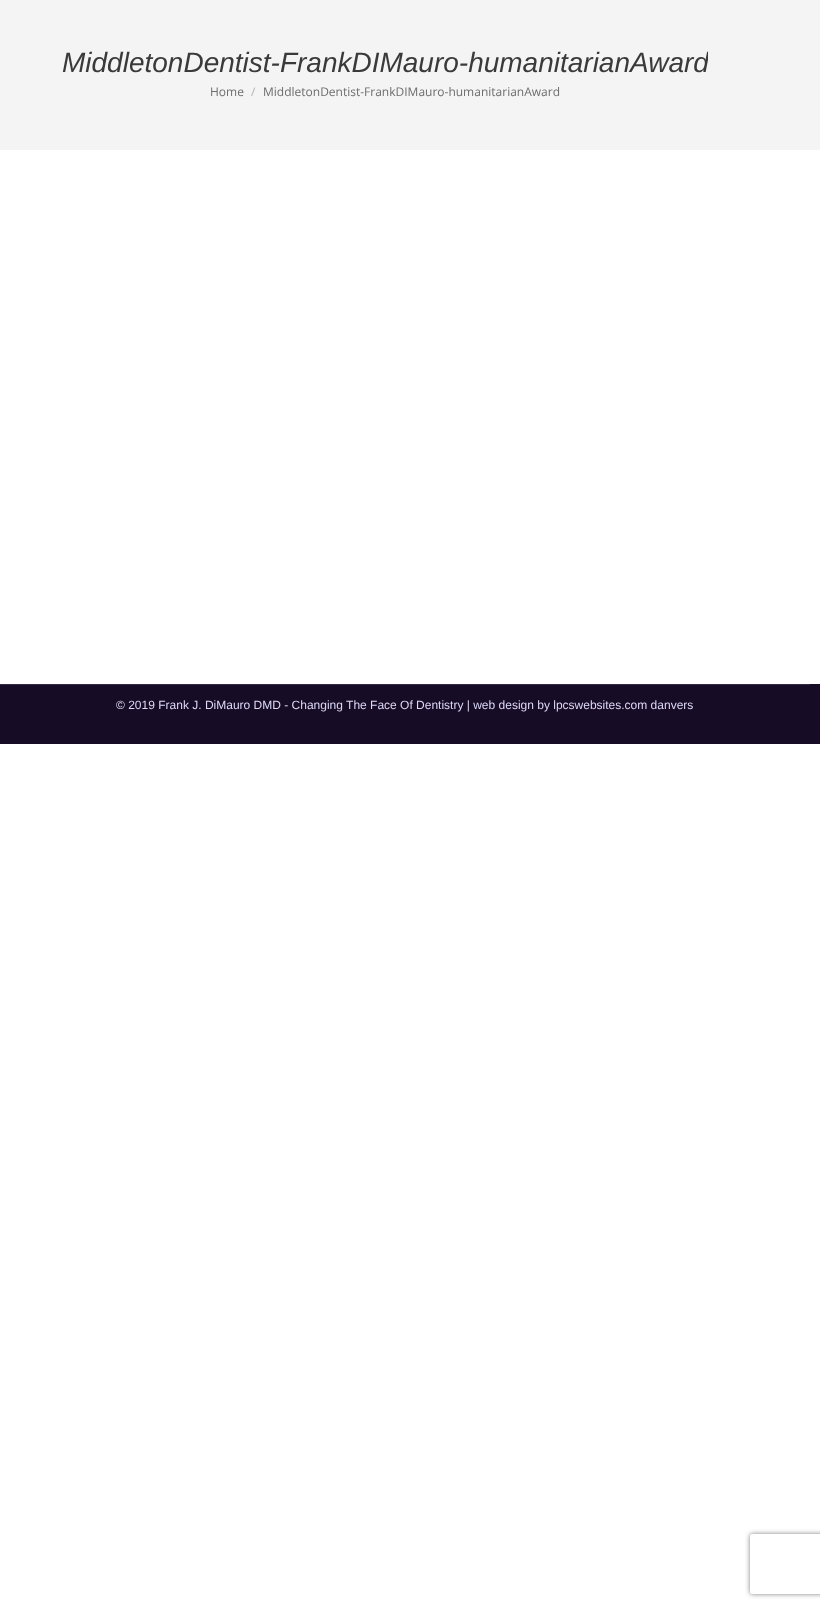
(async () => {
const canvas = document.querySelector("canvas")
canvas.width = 820
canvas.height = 1608
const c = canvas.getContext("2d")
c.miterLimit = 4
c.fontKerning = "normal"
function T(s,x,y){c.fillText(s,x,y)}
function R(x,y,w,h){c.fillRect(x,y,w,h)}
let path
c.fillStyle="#fff"
R(0,0,820,1608)
c.fillStyle="#f4f4f4"
R(0,0,820,150)
c.save()
c.beginPath()
c.rect(62,47,646,32)
c.clip()
c.font="italic 28px Liberation Sans"
c.fillStyle="#3a3a3a"
T("MiddletonDentist-FrankDIMauro-humanitarianAward",62,72)
c.restore()
c.font="12px Open Sans"
c.fillStyle="#6d6d6d"
T("Home",210,96)
c.fillStyle="#b1b1b1"
T("/",251,96)
c.fillStyle="#6d6d6d"
T("MiddletonDentist-FrankDIMauro-humanitarianAward",263,96)
c.fillStyle="#170c26"
R(0,684,820,60)
c.fillStyle="#352b45"
R(0,684,810,1)
c.font="12px Liberation Sans"
c.fillStyle="#dcd9f7"
T("© 2019 Frank J. DiMauro DMD - Changing The Face Of Dentistry | web design by lpcswebsites.com danvers",116,709)
c.save()
path = new Path2D("M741 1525h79v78h-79zm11 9h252c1 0 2 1 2 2v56c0 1-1 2-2 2h-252c-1 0-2-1-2-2v-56c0-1 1-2 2-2z")
c.clip(path,"evenodd")
c.fillStyle="#808080"
c.filter="blur(2.5px)"
c.beginPath()
c.roundRect(750,1534,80,60,2)
c.fill()
c.filter="none"
c.restore()
})()
